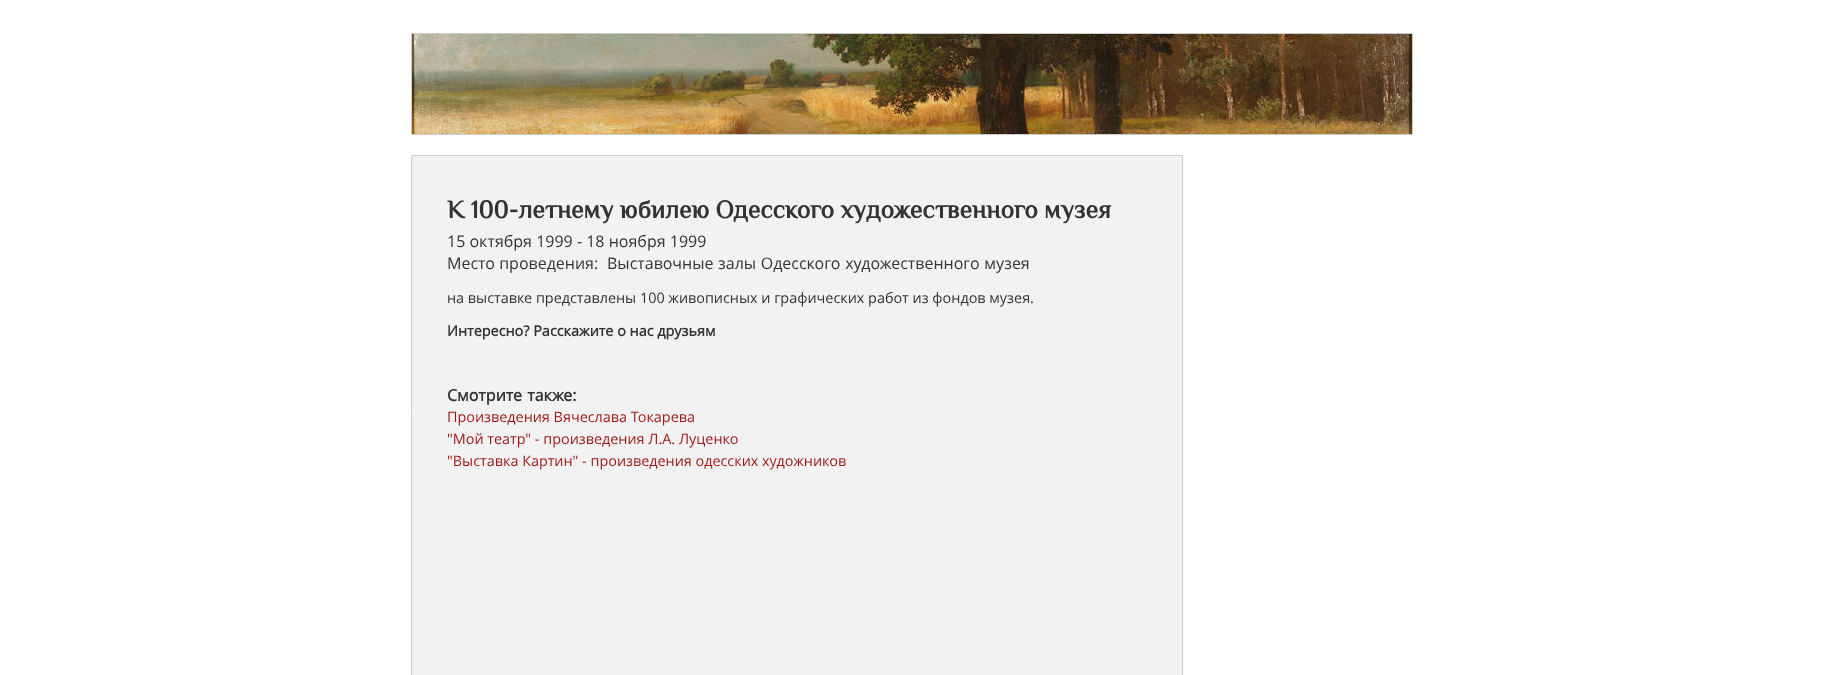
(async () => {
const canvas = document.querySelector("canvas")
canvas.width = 1822
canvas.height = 675
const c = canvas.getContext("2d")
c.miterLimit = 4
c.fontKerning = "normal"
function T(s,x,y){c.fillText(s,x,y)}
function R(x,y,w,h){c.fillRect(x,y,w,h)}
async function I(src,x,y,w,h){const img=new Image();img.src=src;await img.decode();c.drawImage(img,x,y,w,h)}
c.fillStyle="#fff"
R(0,0,1822,675)
c.strokeStyle="#ccc"
c.strokeRect(411.5,33.5,1001,101)
await I("1.png",412,34,1000,100)
c.fillStyle="#f2f2f2"
c.beginPath()
c.rect(411.5,155.5,771,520)
c.fill()
c.stroke()
c.font="bold 25.6px Philosopher"
c.fillStyle="#333"
T("К 100-летнему юбилею Одесского художественного музея",447,218)
c.font="16px Open Sans"
T("15 октября 1999 - 18 ноября 1999",447,247)
T("Место проведения:",447,269)
c.wordSpacing="0.5px"
T("Выставочные залы Одесского художественного музея",607,269)
c.wordSpacing="0px"
c.font="14.4px Open Sans"
T("на выставке представлены 100 живописных и графических работ из фондов музея.",447,303)
c.font="bold 14.4px Open Sans"
T("Интересно? Расскажите о нас друзьям",447,336)
c.wordSpacing="1px"
c.font="bold 16px Open Sans"
T("Смотрите также:",447,401)
c.wordSpacing="0px"
c.font="14.4px Open Sans"
c.fillStyle="#9f1615"
T("Произведения Вячеслава Токарева",447,422)
T("\"Мой театр\" - произведения Л.А. Луценко",447,444)
T("\"Выставка Картин\" - произведения одесских художников",447,466)
})()
